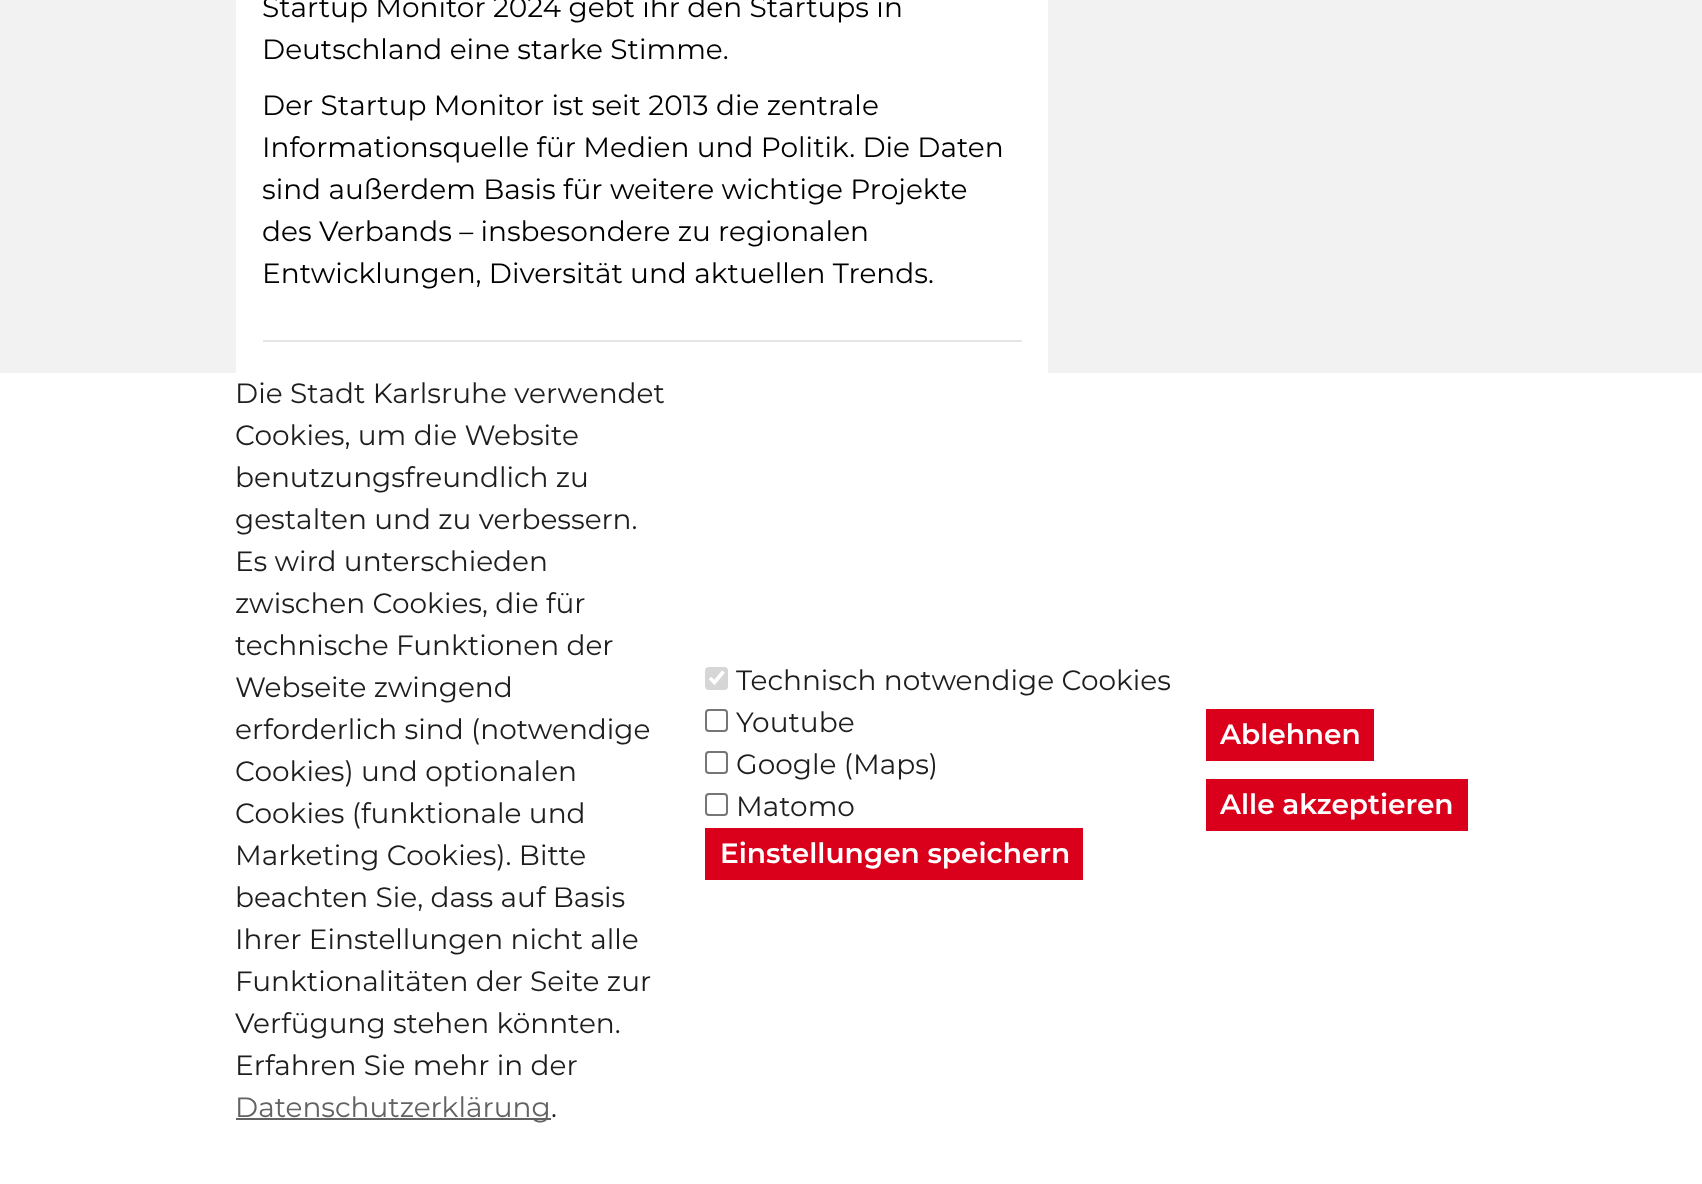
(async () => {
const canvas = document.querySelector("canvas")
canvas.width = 1702
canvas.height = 1184
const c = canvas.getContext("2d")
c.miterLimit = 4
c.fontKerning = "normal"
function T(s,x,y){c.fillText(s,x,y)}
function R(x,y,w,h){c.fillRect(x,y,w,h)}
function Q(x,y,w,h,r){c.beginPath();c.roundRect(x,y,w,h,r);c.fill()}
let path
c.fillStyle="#f2f2f2"
R(0,0,1702,1184)
c.fillStyle="#fff"
R(236,0,812,373)
c.font="28px Montserrat"
c.fillStyle="#000"
T("Startup Monitor 2024 gebt ihr den Startups in",262,17)
T("Deutschland eine starke Stimme.",262,59)
T("Der Startup Monitor ist seit 2013 die zentrale",262,115)
T("Informationsquelle für Medien und Politik. Die Daten",262,157)
T("sind außerdem Basis für weitere wichtige Projekte",262,199)
T("des Verbands – insbesondere zu regionalen",262,241)
T("Entwicklungen, Diversität und aktuellen Trends.",262,283)
c.fillStyle="#e5e5e5"
R(263,340,759,2)
c.fillStyle="#fff"
R(0,373,1702,811)
c.fillStyle="#1e1e1e"
T("Die Stadt Karlsruhe verwendet",235,403)
T("Cookies, um die Website",235,445)
T("benutzungsfreundlich zu",235,487)
T("gestalten und zu verbessern.",235,529)
T("Es wird unterschieden",235,571)
T("zwischen Cookies, die für",235,613)
T("technische Funktionen der",235,655)
T("Webseite zwingend",235,697)
T("erforderlich sind (notwendige",235,739)
T("Cookies) und optionalen",235,781)
T("Cookies (funktionale und",235,823)
T("Marketing Cookies). Bitte",235,865)
T("beachten Sie, dass auf Basis",235,907)
T("Ihrer Einstellungen nicht alle",235,949)
T("Funktionalitäten der Seite zur",235,991)
T("Verfügung stehen könnten.",235,1033)
T("Erfahren Sie mehr in der",235,1075)
c.fillStyle="#626262"
R(236,1118,315,2)
T("Datenschutzerklärung",235,1117)
c.fillStyle="#1e1e1e"
T(".",551,1117)
c.fillStyle="#d6d6d6"
Q(705,667,23,23,4)
path = new Path2D("M710 678l4.5 4.5l9-11")
c.strokeStyle="#fff"
c.lineWidth=3.6
c.stroke(path)
c.fillStyle="#1e1e1e"
T("Technisch notwendige Cookies",736,690)
c.beginPath()
c.roundRect(706,710,21,21,3)
c.strokeStyle="#767676"
c.lineWidth=2
c.stroke()
T("Youtube",736,732)
c.beginPath()
c.roundRect(706,752,21,21,3)
c.stroke()
T("Google (Maps)",736,774)
c.beginPath()
c.roundRect(706,794,21,21,3)
c.stroke()
T("Matomo",736,816)
c.fillStyle="#da001b"
R(705,828,378,52)
c.font="600 28px Montserrat"
c.fillStyle="#fff"
T("Einstellungen speichern",720,863)
c.fillStyle="#da001b"
R(1206,709,168,52)
c.fillStyle="#fff"
T("Ablehnen",1220,744)
c.fillStyle="#da001b"
R(1206,779,262,52)
c.fillStyle="#fff"
T("Alle akzeptieren",1220,814)
})()
